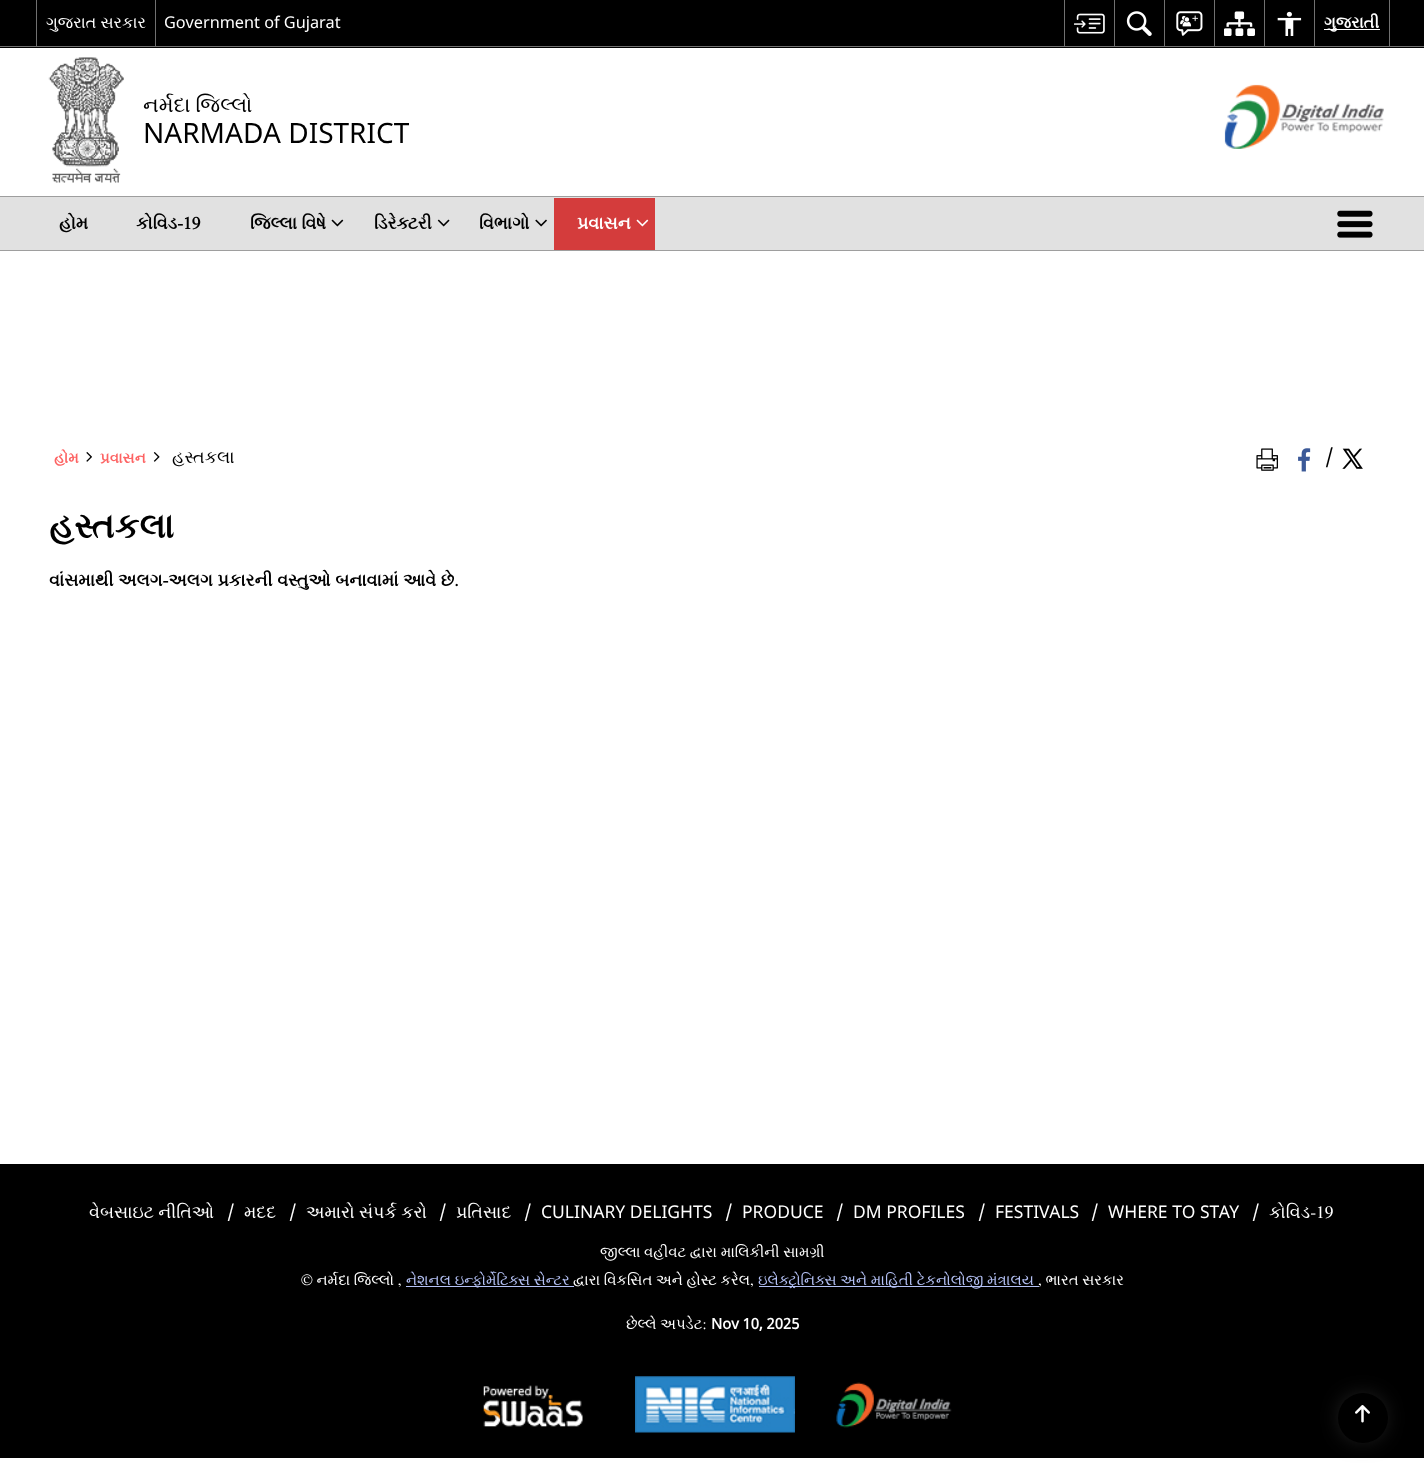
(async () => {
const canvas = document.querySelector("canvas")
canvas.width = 1424
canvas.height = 1479
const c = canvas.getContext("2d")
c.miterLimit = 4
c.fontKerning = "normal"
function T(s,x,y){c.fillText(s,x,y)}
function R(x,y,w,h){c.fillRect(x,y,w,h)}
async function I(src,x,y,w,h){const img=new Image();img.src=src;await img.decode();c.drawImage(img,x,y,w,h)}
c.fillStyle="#fff"
R(0,0,1424,1479)
c.fillStyle="#000"
R(0,0,1424,48)
c.fillStyle="#707070"
R(0,46,1424,1)
R(36,0,1,46)
c.font="16.25px FreeSerif"
c.fillStyle="#fff"
T("ગુજરાત સરકાર",46,28)
c.fillStyle="#707070"
R(155,0,1,46)
c.font="16.25px Noto Sans"
c.fillStyle="#fff"
T("Government of Gujarat",164,28)
c.fillStyle="#707070"
R(1064,0,1,46)
await I("1.png",1074,13,31,21)
R(1114,0,1,46)
await I("2.png",1126,11,26,25)
R(1164,0,1,46)
await I("3.png",1176,11,27,25)
R(1214,0,1,46)
await I("4.png",1224,11,31,25)
R(1264,0,1,46)
await I("5.png",1277,11,25,25)
R(1389,0,1,46)
R(1314,0,1,46)
c.fillStyle="#fff"
R(1324,29,56,1)
c.font="bold 16.25px FreeSerif"
T("ગુજરાતી",1324,28)
await I("6.png",48,57,76,126)
c.font="21px FreeSerif"
c.fillStyle="#000"
T("નર્મદા જિલ્લો",143,112)
c.font="28px Noto Sans"
T("NARMADA DISTRICT",143,143)
await I("7.png",1224,84,160,65)
c.fillStyle="#e1e1e1"
R(0,197,1424,53)
c.fillStyle="#9e9e9e"
R(0,196,1424,1)
R(0,250,1424,1)
c.font="bold 17.5px FreeSerif"
c.fillStyle="#000"
T("હોમ",59,229)
T("કોવિડ-19",136,229)
T("જિલ્લા વિષે",250,229)
await I("8.png",331,219,13,8)
T("ડિરેક્ટરી",374,229)
await I("9.png",437,219,13,8)
T("વિભાગો",479,229)
await I("10.png",535,219,12,8)
c.fillStyle="#d43c3c"
R(554,198,101,52)
c.fillStyle="#fff"
T("પ્રવાસન",577,229)
await I("11.png",636,219,13,8)
await I("12.png",1337,210,36,28)
c.font="bold 14.9px FreeSerif"
c.fillStyle="#fd6363"
T("હોમ",54,463)
await I("13.png",86,452,6,10)
T("પ્રવાસન",100,463)
await I("14.png",153,452,7,10)
c.font="17.5px FreeSerif"
c.fillStyle="#000"
T("હસ્તકલા",172,463)
await I("15.png",1256,448,22,23)
await I("16.png",1298,448,13,24)
c.font="20px Noto Sans"
T("/",1325,464)
await I("17.png",1342,448,21,21)
c.font="bold 35px FreeSerif"
T("હસ્તકલા",49,538)
c.wordSpacing="0.25px"
c.font="bold 17.5px FreeSerif"
T("વાંસમાથી અલગ-અલગ પ્રકારની વસ્તુઓ બનાવામાં આવે છે.",49,586)
R(0,1164,1424,294)
c.wordSpacing="0px"
c.font="17.5px FreeSerif"
c.fillStyle="#fff"
T("વેબસાઇટ નીતિઓ",89,1218)
c.font="17.5px Noto Sans"
T("/",227,1218)
c.font="17.5px FreeSerif"
T("મદદ",244,1218)
c.font="17.5px Noto Sans"
T("/",289,1218)
c.font="17.5px FreeSerif"
T("અમારો સંપર્ક કરો",306,1218)
c.font="17.5px Noto Sans"
T("/",439,1218)
c.font="17.5px FreeSerif"
T("પ્રતિસાદ",456,1218)
c.font="17.5px Noto Sans"
T("/",524,1218)
T("CULINARY DELIGHTS",541,1218)
T("/",725,1218)
T("PRODUCE",742,1218)
T("/",836,1218)
T("DM PROFILES",853,1218)
T("/",978,1218)
T("FESTIVALS",995,1218)
T("/",1091,1218)
T("WHERE TO STAY",1108,1218)
T("/",1252,1218)
c.font="17.5px FreeSerif"
T("કોવિડ-19",1269,1218)
c.font="14.9px FreeSerif"
T("જીલ્લા વહીવટ દ્વારા માલિકીની સામગ્રી",600,1257)
T("© નર્મદા જિલ્લો ,",301,1285)
c.fillStyle="#b4c1f5"
R(406,1286,168,1)
T("નેશનલ ઇન્ફોર્મેટિક્સ સેન્ટર",406,1285)
c.fillStyle="#fff"
T("દ્વારા વિકસિત અને હોસ્ટ કરેલ,",573,1285)
c.fillStyle="#b4c1f5"
R(759,1286,280,1)
T("ઇલેક્ટ્રોનિક્સ અને માહિતી ટેકનોલોજી મંત્રાલય",758,1285)
c.fillStyle="#fff"
T(", ભારત સરકાર",1038,1285)
T("છેલ્લે અપડેટ:",626,1329)
c.font="bold 14.9px Noto Sans"
T("Nov 10, 2025",711,1329)
await I("18.png",483,1385,100,42)
await I("19.png",635,1376,160,57)
await I("20.png",836,1382,116,46)
c.fillStyle="#3c3c3c"
c.filter="blur(12px)"
c.beginPath()
c.roundRect(1344,1399,37,37,18.5)
c.fill()
c.filter="none"
c.fillStyle="#000"
c.beginPath()
c.arc(1363,1418,25,0,7)
c.fill()
await I("21.png",1355,1405,15,18)
})()
